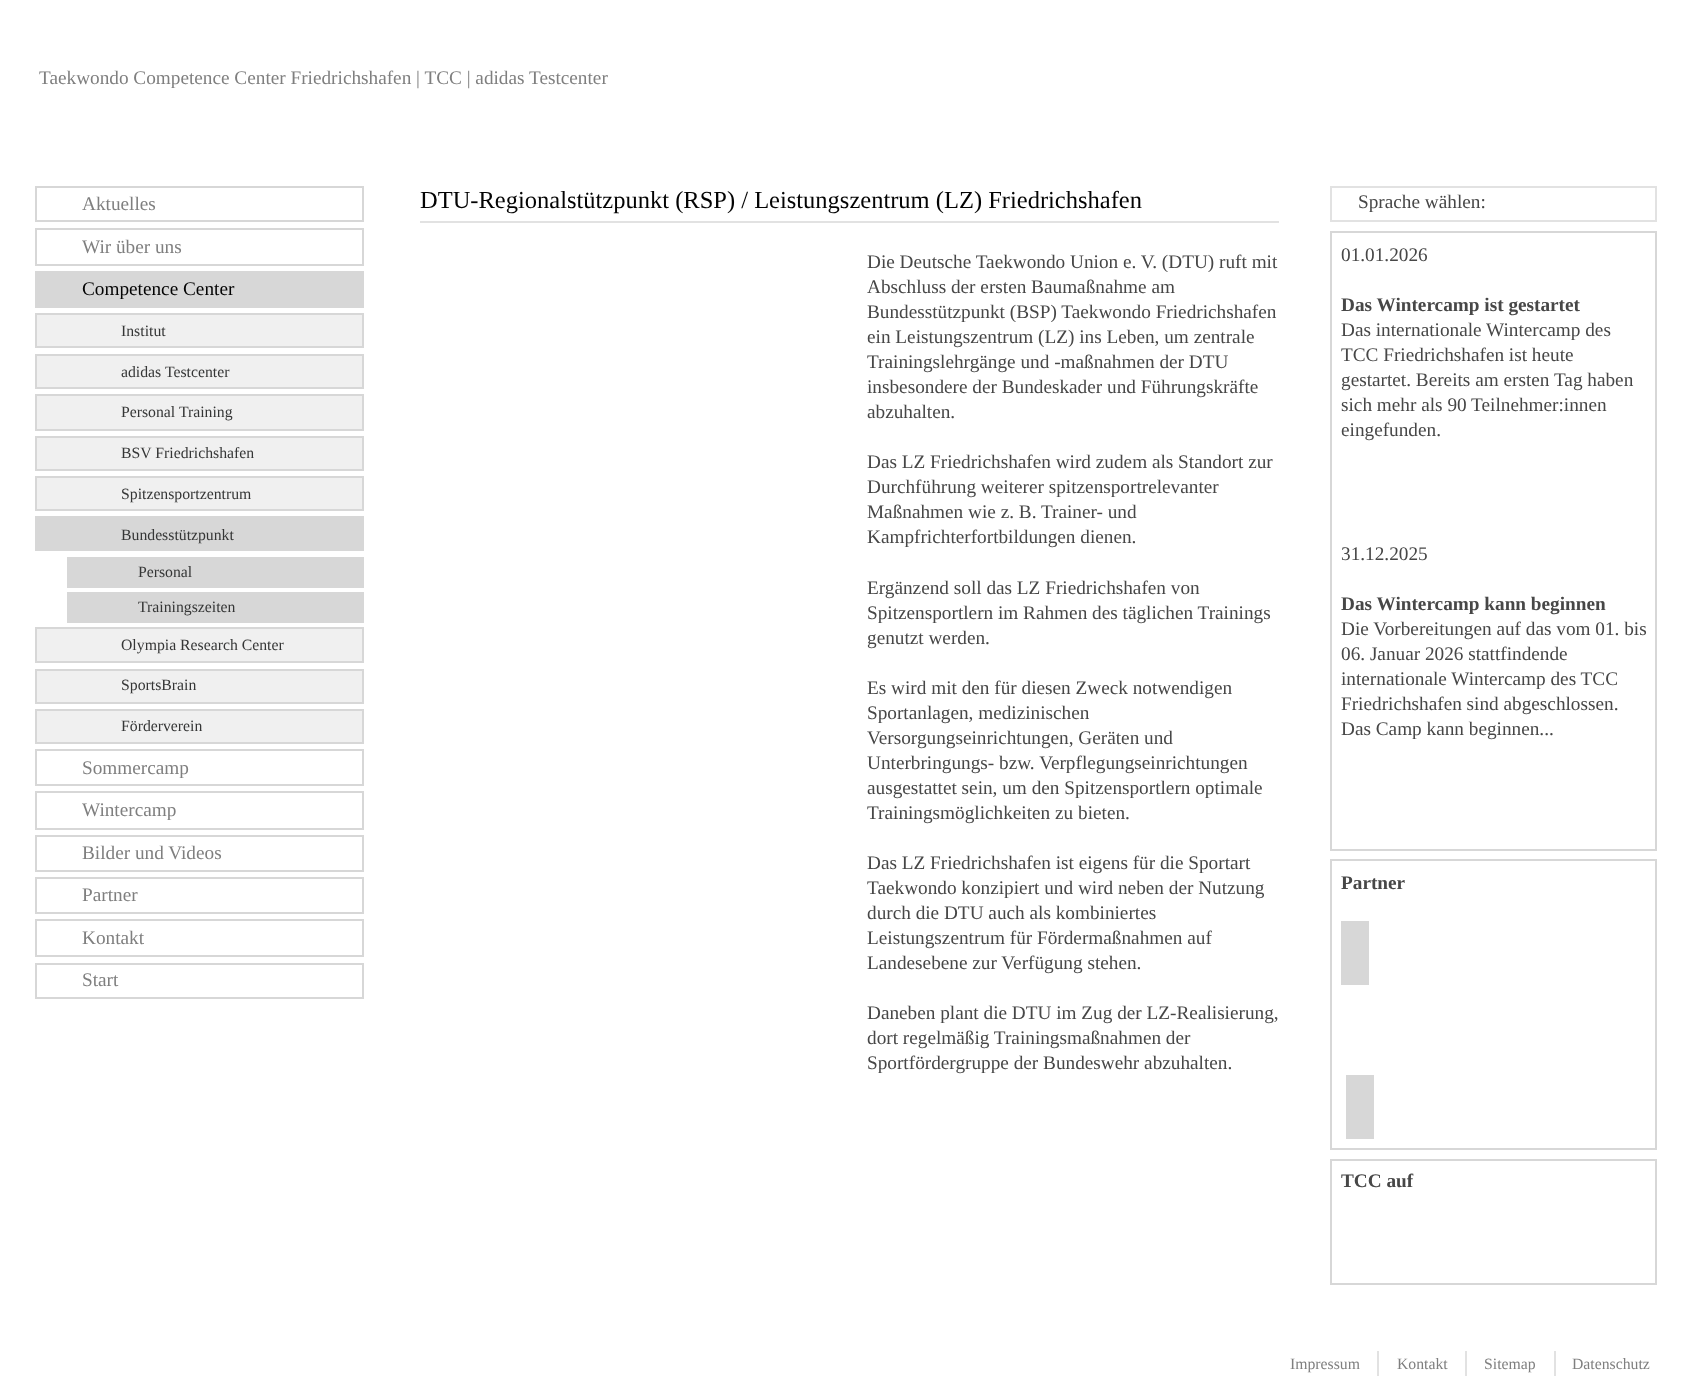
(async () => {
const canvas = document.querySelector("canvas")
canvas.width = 1694
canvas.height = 1394
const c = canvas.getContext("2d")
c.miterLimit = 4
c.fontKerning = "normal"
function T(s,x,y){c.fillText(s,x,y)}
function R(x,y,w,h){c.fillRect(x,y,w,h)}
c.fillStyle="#fff"
R(0,0,1694,1394)
c.font="19.25px Liberation Serif"
c.fillStyle="#7f7f7f"
T("Taekwondo Competence Center Friedrichshafen | TCC | adidas Testcenter",39,84)
c.strokeStyle="#d7d7d7"
c.lineWidth=2
c.strokeRect(36,187,327,34)
T("Aktuelles",82,210)
c.strokeRect(36,229,327,36)
T("Wir über uns",82,253)
c.fillStyle="#d7d7d7"
R(35,271,329,37)
c.fillStyle="#030303"
T("Competence Center",82,295)
c.fillStyle="#f0f0f0"
c.beginPath()
c.rect(36,314,327,33)
c.fill()
c.stroke()
c.font="15.75px Liberation Serif"
c.fillStyle="#353636"
T("Institut",121,336)
c.fillStyle="#f0f0f0"
c.beginPath()
c.rect(36,355,327,33)
c.fill()
c.stroke()
c.fillStyle="#353636"
T("adidas Testcenter",121,377)
c.fillStyle="#f0f0f0"
c.beginPath()
c.rect(36,395,327,35)
c.fill()
c.stroke()
c.fillStyle="#353636"
T("Personal Training",121,417)
c.fillStyle="#f0f0f0"
c.beginPath()
c.rect(36,437,327,33)
c.fill()
c.stroke()
c.fillStyle="#353636"
T("BSV Friedrichshafen",121,458)
c.fillStyle="#f0f0f0"
c.beginPath()
c.rect(36,477,327,33)
c.fill()
c.stroke()
c.fillStyle="#353636"
T("Spitzensportzentrum",121,499)
c.fillStyle="#d7d7d7"
R(35,516,329,35)
c.fillStyle="#353636"
T("Bundesstützpunkt",121,540)
c.fillStyle="#d7d7d7"
R(67,557,297,31)
c.fillStyle="#353636"
T("Personal",138,577)
c.fillStyle="#d7d7d7"
R(67,592,297,31)
c.fillStyle="#353636"
T("Trainingszeiten",138,612)
c.fillStyle="#f0f0f0"
c.beginPath()
c.rect(36,628,327,34)
c.fill()
c.stroke()
c.fillStyle="#353636"
T("Olympia Research Center",121,650)
c.fillStyle="#f0f0f0"
c.beginPath()
c.rect(36,670,327,33)
c.fill()
c.stroke()
c.fillStyle="#353636"
T("SportsBrain",121,690)
c.fillStyle="#f0f0f0"
c.beginPath()
c.rect(36,710,327,33)
c.fill()
c.stroke()
c.fillStyle="#353636"
T("Förderverein",121,731)
c.strokeRect(36,750,327,35)
c.font="19.25px Liberation Serif"
c.fillStyle="#7f7f7f"
T("Sommercamp",82,774)
c.strokeRect(36,792,327,37)
T("Wintercamp",82,816)
c.strokeRect(36,836,327,35)
T("Bilder und Videos",82,859)
c.strokeRect(36,878,327,35)
T("Partner",82,901)
c.strokeRect(36,920,327,36)
T("Kontakt",82,944)
c.strokeRect(36,964,327,34)
T("Start",82,986)
c.fillStyle="#e2e2e2"
R(420,221,859,2)
c.font="24.5px Liberation Serif"
c.fillStyle="#030303"
T("DTU-Regionalstützpunkt (RSP) / Leistungszentrum (LZ) Friedrichshafen",420,208)
c.font="19.25px Liberation Serif"
c.fillStyle="#474747"
T("Die Deutsche Taekwondo Union e. V. (DTU) ruft mit",867,268)
T("Abschluss der ersten Baumaßnahme am",867,293)
T("Bundesstützpunkt (BSP) Taekwondo Friedrichshafen",867,318)
T("ein Leistungszentrum (LZ) ins Leben, um zentrale",867,343)
T("Trainingslehrgänge und -maßnahmen der DTU",867,368)
T("insbesondere der Bundeskader und Führungskräfte",867,393)
T("abzuhalten.",867,418)
T("Das LZ Friedrichshafen wird zudem als Standort zur",867,468)
T("Durchführung weiterer spitzensportrelevanter",867,493)
T("Maßnahmen wie z. B. Trainer- und",867,518)
T("Kampfrichterfortbildungen dienen.",867,543)
T("Ergänzend soll das LZ Friedrichshafen von",867,594)
T("Spitzensportlern im Rahmen des täglichen Trainings",867,619)
T("genutzt werden.",867,644)
T("Es wird mit den für diesen Zweck notwendigen",867,694)
T("Sportanlagen, medizinischen",867,719)
T("Versorgungseinrichtungen, Geräten und",867,744)
T("Unterbringungs- bzw. Verpflegungseinrichtungen",867,769)
T("ausgestattet sein, um den Spitzensportlern optimale",867,794)
T("Trainingsmöglichkeiten zu bieten.",867,819)
T("Das LZ Friedrichshafen ist eigens für die Sportart",867,869)
T("Taekwondo konzipiert und wird neben der Nutzung",867,894)
T("durch die DTU auch als kombiniertes",867,919)
T("Leistungszentrum für Fördermaßnahmen auf",867,944)
T("Landesebene zur Verfügung stehen.",867,969)
T("Daneben plant die DTU im Zug der LZ-Realisierung,",867,1019)
T("dort regelmäßig Trainingsmaßnahmen der",867,1044)
T("Sportfördergruppe der Bundeswehr abzuhalten.",867,1069)
c.strokeStyle="#e2e2e2"
c.strokeRect(1331,187,325,34)
T("Sprache wählen:",1358,208)
c.strokeStyle="#d7d7d7"
c.strokeRect(1331,232,325,618)
T("01.01.2026",1341,261)
c.font="bold 19.25px Liberation Serif"
T("Das Wintercamp ist gestartet",1341,311)
c.font="19.25px Liberation Serif"
T("Das internationale Wintercamp des",1341,336)
T("TCC Friedrichshafen ist heute",1341,361)
T("gestartet. Bereits am ersten Tag haben",1341,386)
T("sich mehr als 90 Teilnehmer:innen",1341,411)
T("eingefunden.",1341,436)
T("31.12.2025",1341,560)
c.font="bold 19.25px Liberation Serif"
T("Das Wintercamp kann beginnen",1341,610)
c.font="19.25px Liberation Serif"
T("Die Vorbereitungen auf das vom 01. bis",1341,635)
T("06. Januar 2026 stattfindende",1341,660)
T("internationale Wintercamp des TCC",1341,685)
T("Friedrichshafen sind abgeschlossen.",1341,710)
T("Das Camp kann beginnen...",1341,735)
c.strokeRect(1331,860,325,289)
c.font="bold 19.25px Liberation Serif"
T("Partner",1341,889)
c.fillStyle="#d7d7d7"
R(1341,921,28,64)
R(1346,1075,28,64)
c.strokeRect(1331,1160,325,124)
c.fillStyle="#474747"
T("TCC auf",1341,1187)
c.font="15.75px Liberation Serif"
c.fillStyle="#7f7f7f"
T("Impressum",1290,1369)
c.fillStyle="#e2e2e2"
R(1377,1351,2,25)
c.fillStyle="#7f7f7f"
T("Kontakt",1397,1369)
c.fillStyle="#e2e2e2"
R(1465,1351,2,25)
c.fillStyle="#7f7f7f"
T("Sitemap",1484,1369)
c.fillStyle="#e2e2e2"
R(1554,1351,2,25)
c.fillStyle="#7f7f7f"
T("Datenschutz",1572,1369)
})()
